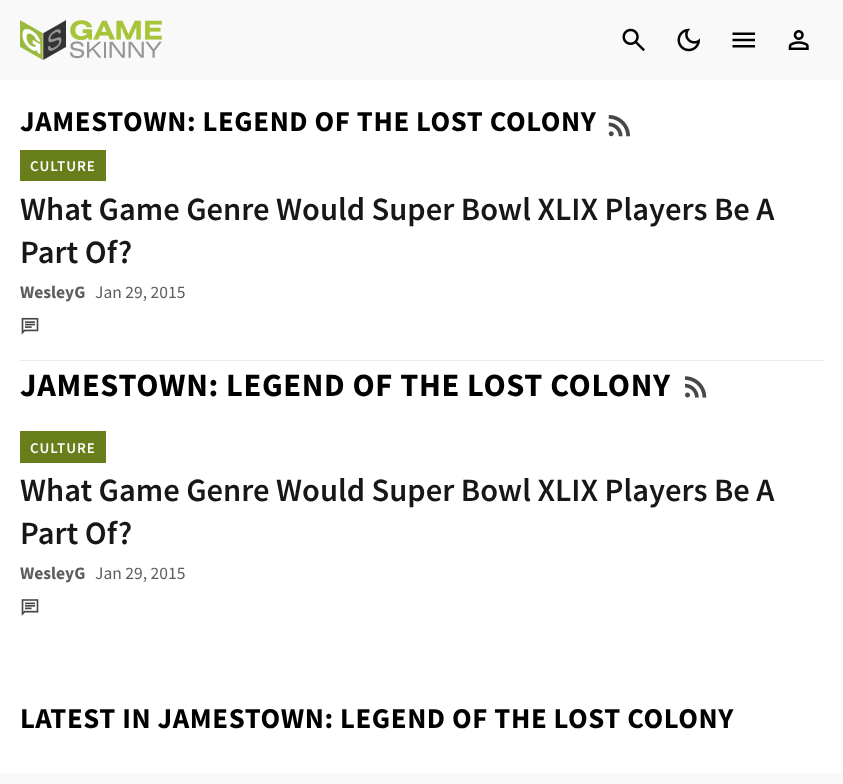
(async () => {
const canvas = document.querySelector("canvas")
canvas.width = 843
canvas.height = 784
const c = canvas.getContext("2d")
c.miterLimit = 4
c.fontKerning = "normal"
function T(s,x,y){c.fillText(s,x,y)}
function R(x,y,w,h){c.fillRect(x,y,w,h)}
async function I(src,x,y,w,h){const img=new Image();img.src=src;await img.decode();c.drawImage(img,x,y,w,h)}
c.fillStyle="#fff"
R(0,0,843,784)
c.fillStyle="#f9f9f9"
R(0,0,843,80)
await I("1.png",20,20,142,40)
await I("2.png",622,28,23,24)
await I("3.png",677,28,23,24)
await I("4.png",732,32,23,16)
await I("5.png",788,30,21,20)
c.letterSpacing="0.6px"
c.font="bold 28.75px Source Sans Pro"
c.fillStyle="#010101"
T("JAMESTOWN: LEGEND OF THE LOST COLONY",20,131)
await I("6.png",608,115,22,22)
c.fillStyle="#687e1a"
R(20,150,86,31)
c.letterSpacing="1px"
c.font="600 15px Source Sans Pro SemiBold"
c.fillStyle="#fefefe"
T("CULTURE",30,171)
c.letterSpacing="0px"
c.font="600 32.5px Source Sans Pro SemiBold"
c.fillStyle="#171717"
T("What Game Genre Would Super Bowl XLIX Players Be A",20,220)
T("Part Of?",20,263)
c.font="bold 17.5px Source Sans Pro"
c.fillStyle="#5d5d5d"
T("WesleyG",20,298)
c.font="17.5px Source Sans Pro"
T("Jan 29, 2015",95,298)
await I("7.png",21,317,18,18)
c.fillStyle="#e9e9e9"
R(20,360,804,1)
c.letterSpacing="0.65px"
c.font="bold 32.5px Source Sans Pro"
c.fillStyle="#010101"
T("JAMESTOWN: LEGEND OF THE LOST COLONY",20,396)
await I("8.png",685,376,22,22)
c.fillStyle="#687e1a"
R(20,431,86,32)
c.letterSpacing="1px"
c.font="600 15px Source Sans Pro SemiBold"
c.fillStyle="#fefefe"
T("CULTURE",30,453)
c.letterSpacing="0px"
c.font="600 32.5px Source Sans Pro SemiBold"
c.fillStyle="#171717"
T("What Game Genre Would Super Bowl XLIX Players Be A",20,501)
T("Part Of?",20,544)
c.font="bold 17.5px Source Sans Pro"
c.fillStyle="#5d5d5d"
T("WesleyG",20,579)
c.font="17.5px Source Sans Pro"
T("Jan 29, 2015",95,579)
await I("9.png",21,599,18,17)
c.letterSpacing="0.6px"
c.font="bold 28.75px Source Sans Pro"
c.fillStyle="#010101"
T("LATEST IN JAMESTOWN: LEGEND OF THE LOST COLONY",20,728)
c.fillStyle="#f9f9f9"
R(0,773,843,11)
})()
